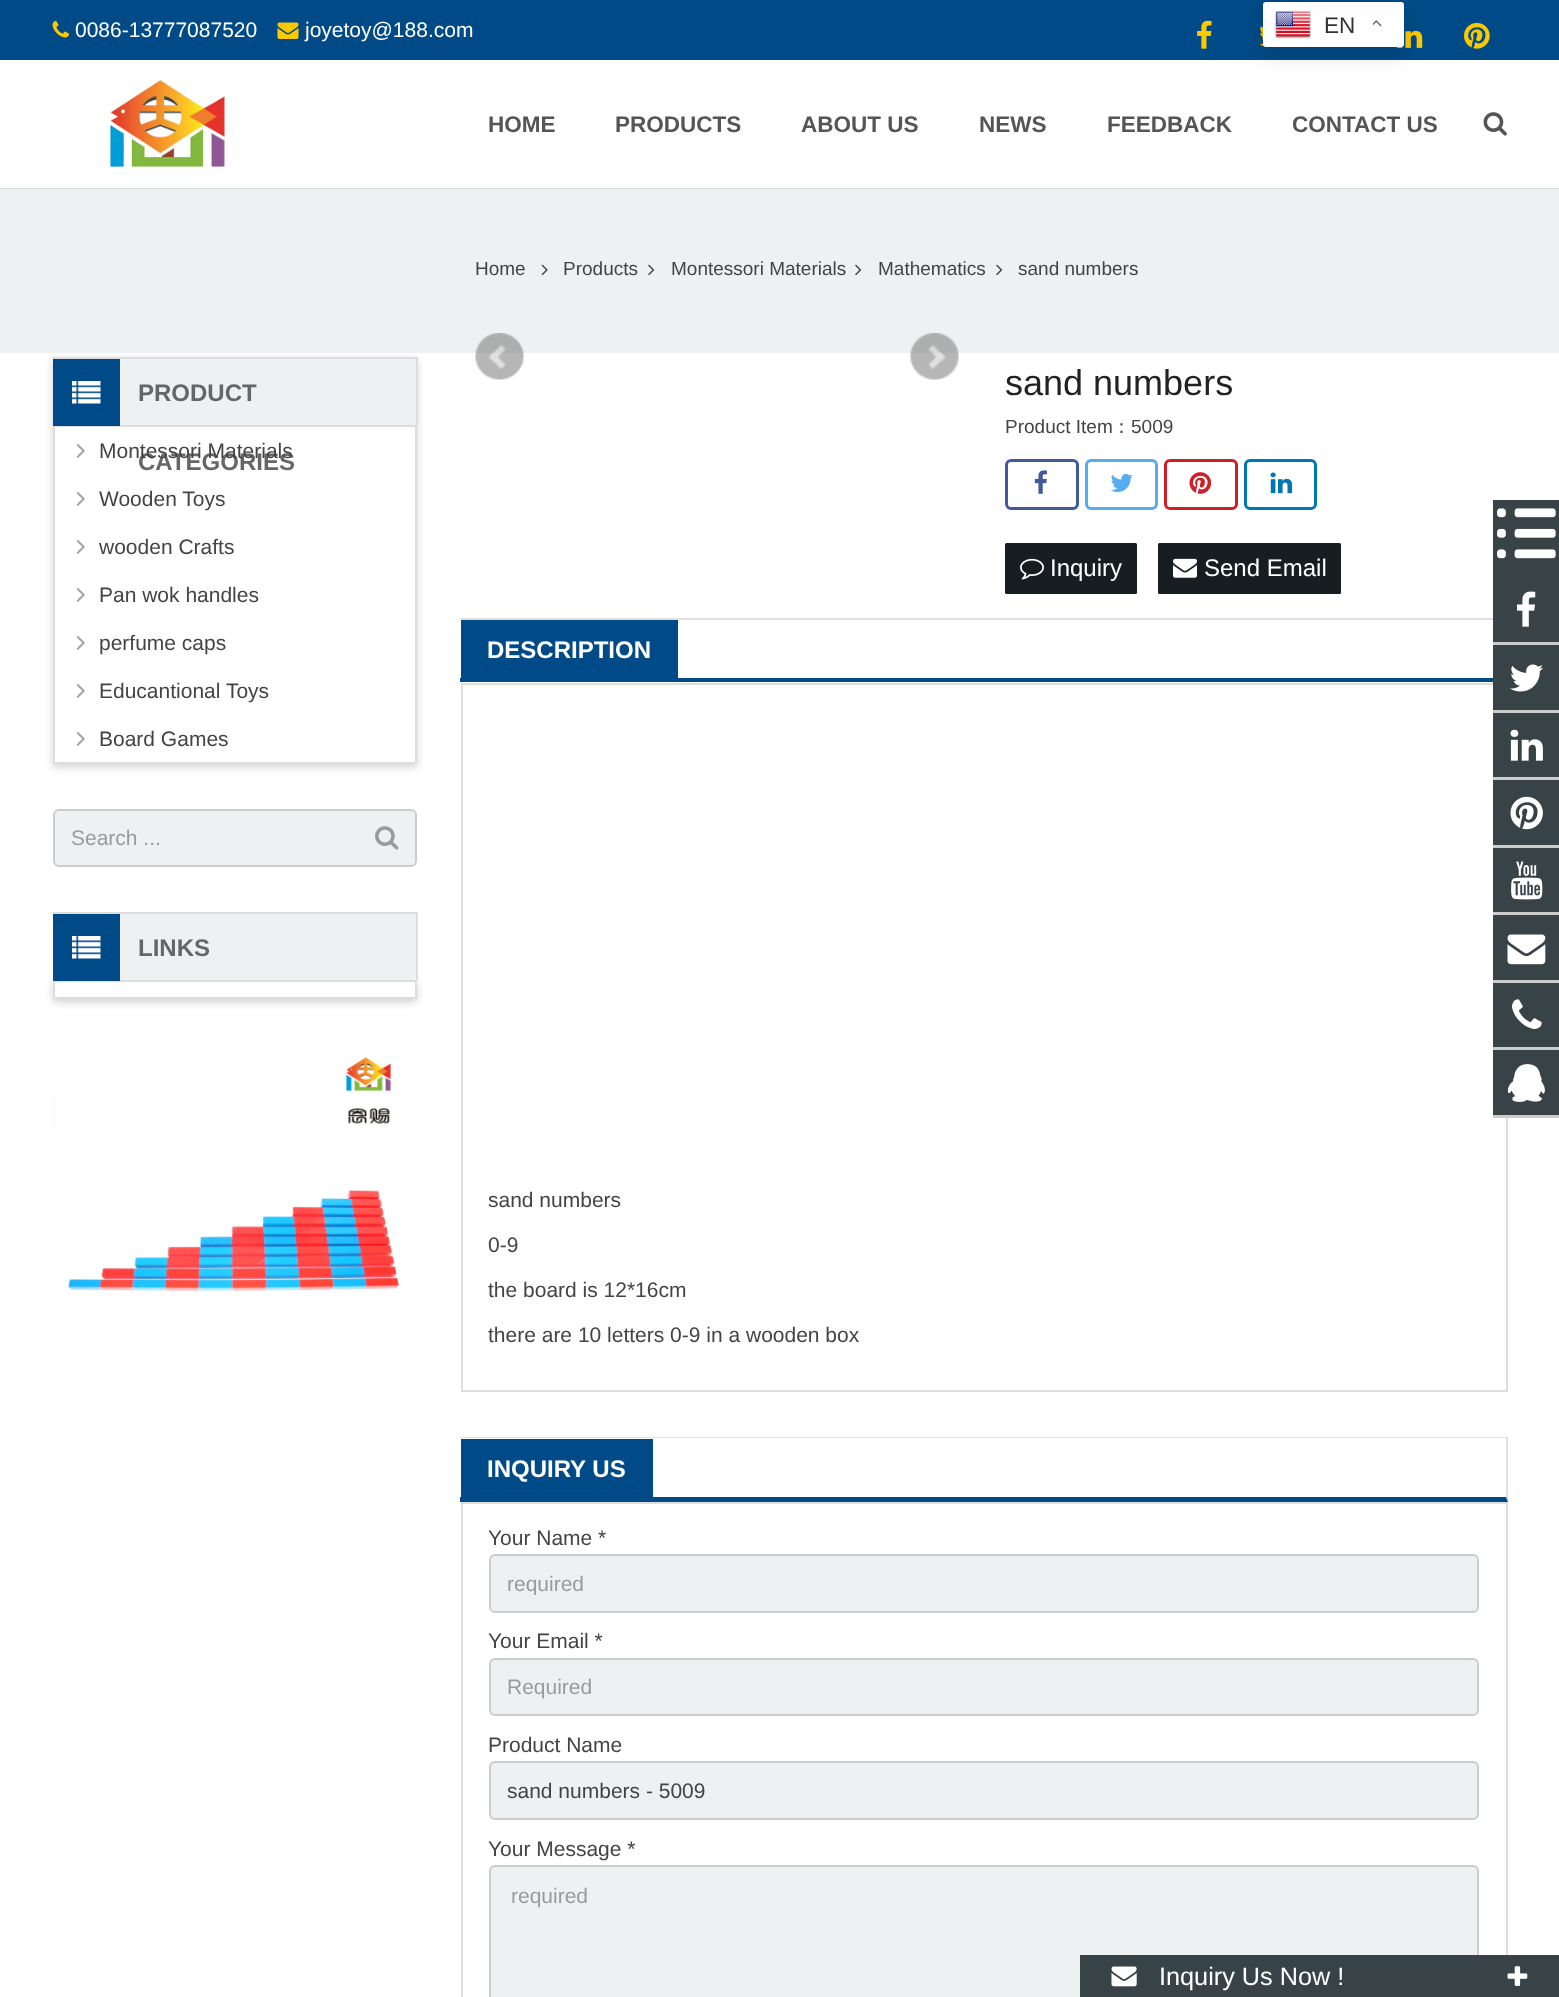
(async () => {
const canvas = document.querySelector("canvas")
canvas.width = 1559
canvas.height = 1997
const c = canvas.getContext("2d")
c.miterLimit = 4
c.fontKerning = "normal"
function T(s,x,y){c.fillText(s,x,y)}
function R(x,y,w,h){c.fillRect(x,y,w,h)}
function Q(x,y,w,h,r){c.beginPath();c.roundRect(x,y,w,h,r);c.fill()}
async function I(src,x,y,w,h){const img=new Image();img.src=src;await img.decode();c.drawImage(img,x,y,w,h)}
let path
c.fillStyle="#fff"
R(0,0,1559,1997)
c.fillStyle="#004b87"
R(0,0,1559,60)
await I("17.png",1259,26,7,21)
await I("18.png",1396,30,27,18)
c.fillStyle="#00000026"
c.filter="blur(11px)"
c.beginPath()
c.roundRect(1263,9,141,45,3)
c.fill()
c.filter="none"
c.fillStyle="#fff"
Q(1263,2,141,45,3)
await I("1.png",1275,10,36,29)
c.font="22.5px Liberation Sans"
c.fillStyle="#333"
T("EN",1324,33)
await I("2.png",1373,20,9,7)
c.fillStyle="#e0e0e0"
path = new Path2D("M460 618h1048l-2 2h-1046z")
c.fill(path)
c.fillStyle="#004b87"
path = new Path2D("M1508 682h-1048v-4h1046z")
c.fill(path)
c.strokeStyle="#ddd"
c.lineWidth=2
c.strokeRect(462,684,1045,707)
c.fillStyle="#384347"
R(1493,500,66,615)
await I("3.png",1497,508,59,51)
c.fillStyle="#ccc"
R(1493,642,66,3)
await I("4.png",1517,591,19,36)
R(1493,710,66,3)
await I("5.png",1510,664,33,28)
R(1493,777,66,3)
await I("6.png",1510,729,33,32)
R(1493,845,66,3)
await I("7.png",1510,796,33,34)
R(1493,912,66,3)
await I("8.png",1511,861,32,39)
R(1493,980,66,3)
await I("9.png",1507,934,39,31)
R(1493,1047,66,3)
await I("10.png",1512,999,30,30)
R(1493,1115,66,3)
await I("11.png",1507,1064,38,38)
c.strokeRect(462,1503,1045,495)
c.fillStyle="#edf1f2"
c.beginPath()
c.roundRect(490,1866,988,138,5)
c.fill()
c.strokeStyle="#ccc"
c.stroke()
c.fillStyle="#384347"
R(1080,1955,479,42)
await I("12.png",1111,1966,26,21)
c.font="25.25px Liberation Sans"
c.fillStyle="#fff"
T("Inquiry Us Now !",1159,1985)
await I("13.png",1507,1966,21,20)
await I("14.png",52,21,17,17)
c.font="21px Liberation Sans"
T("0086-13777087520",75,37)
await I("15.png",277,22,22,17)
T("joyetoy@188.com",305,37)
await I("16.png",1197,20,15,29)
await I("19.png",1464,22,26,27)
c.fillStyle="#dadedf"
R(0,188,1559,1)
await I("20.png",110,80,115,87)
c.font="bold 22.5px Liberation Sans"
c.fillStyle="#555"
T("HOME",488,132)
T("PRODUCTS",615,132)
T("ABOUT US",801,132)
T("NEWS",979,132)
T("FEEDBACK",1107,132)
T("CONTACT US",1292,132)
await I("21.png",1483,112,24,24)
c.save()
path = new Path2D("M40 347h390v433h-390zm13 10h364v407h-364z")
c.clip(path,"evenodd")
c.fillStyle="#0000002e"
c.filter="blur(4px)"
c.beginPath()
c.rect(53,360,364,407)
c.fill()
c.filter="none"
c.restore()
c.fillStyle="#edf1f2"
R(0,189,1559,164)
c.font="19px Liberation Sans"
c.fillStyle="#444"
T("Home",475,275)
await I("22.png",541,264,7,12)
T("Products",563,275)
await I("23.png",648,264,7,12)
T("Montessori Materials",671,275)
await I("23.png",855,264,7,12)
T("Mathematics",878,275)
await I("23.png",996,264,7,12)
T("sand numbers",1018,275)
c.fillStyle="#edf1f2"
R(120,359,296,66)
c.fillStyle="#ddd"
R(53,357,364,2)
R(416,357,2,68)
c.strokeStyle="#ddd"
c.strokeRect(54,426,362,337)
c.fillStyle="#004b87"
R(53,359,67,67)
await I("24.png",72,381,29,23)
c.font="bold 24px Liberation Sans"
c.fillStyle="#666"
T("PRODUCT",138,401)
T("CATEGORIES",138,470)
await I("25.png",76,444,9,14)
c.font="21px Liberation Sans"
c.fillStyle="#444"
T("Montessori Materials",99,458)
await I("25.png",76,492,9,14)
T("Wooden Toys",99,506)
await I("25.png",76,540,9,14)
T("wooden Crafts",99,554)
await I("25.png",76,588,9,14)
T("Pan wok handles",99,602)
await I("25.png",76,636,9,14)
T("perfume caps",99,650)
await I("25.png",76,684,9,14)
T("Educantional Toys",99,698)
await I("25.png",76,732,9,14)
T("Board Games",99,746)
c.fillStyle="#edf1f2"
c.beginPath()
c.roundRect(54,810,362,56,5)
c.fill()
c.strokeStyle="#ccc"
c.stroke()
c.fillStyle="#999b9b"
T("Search ...",71,845)
await I("26.png",375,826,24,24)
c.save()
path = new Path2D("M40 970h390v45h-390zm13 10h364v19h-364z")
c.clip(path,"evenodd")
c.fillStyle="#0000002e"
c.filter="blur(4px)"
c.beginPath()
c.rect(53,983,364,19)
c.fill()
c.filter="none"
c.restore()
c.fillStyle="#edf1f2"
R(120,914,296,66)
c.fillStyle="#ddd"
R(53,912,364,2)
R(416,912,2,68)
c.strokeStyle="#ddd"
c.strokeRect(54,981,362,17)
c.fillStyle="#004b87"
R(53,914,67,67)
await I("24.png",72,936,29,23)
c.font="bold 24px Liberation Sans"
c.fillStyle="#666"
T("LINKS",138,956)
await I("27.png",52,1056,347,235)
await I("28.png",475,333,49,47)
await I("29.png",910,333,49,47)
c.font="36px Liberation Sans"
c.fillStyle="#222"
T("sand numbers",1005,395)
c.font="19px Liberation Sans"
c.fillStyle="#444"
T("Product Item",1005,433)
c.font="500 19px WenQuanYi Zen Hei"
T("：",1112,433)
c.font="19px Liberation Sans"
T("5009",1131,433)
c.beginPath()
c.roundRect(1006.5,460.5,71,48,4.5)
c.strokeStyle="#42599e"
c.lineWidth=3
c.stroke()
await I("30.png",1034,470,13,24)
c.beginPath()
c.roundRect(1086.5,460.5,70,48,4.5)
c.strokeStyle="#55acee"
c.stroke()
await I("31.png",1110,474,23,18)
c.beginPath()
c.roundRect(1165.5,460.5,71,48,4.5)
c.strokeStyle="#cb2027"
c.stroke()
await I("32.png",1189,472,23,22)
c.beginPath()
c.roundRect(1245.5,460.5,70,48,4.5)
c.strokeStyle="#0077b5"
c.stroke()
await I("33.png",1270,472,23,22)
c.fillStyle="#161e21"
Q(1005,543,132,51,1.5)
await I("34.png",1020,558,24,22)
c.font="24px Liberation Sans"
c.fillStyle="#fff"
T("Inquiry",1050,576)
c.fillStyle="#161e21"
Q(1158,543,183,51,1.5)
await I("35.png",1173,558,24,20)
c.fillStyle="#fff"
T("Send Email",1204,576)
c.fillStyle="#004b87"
R(461,620,217,58)
c.font="bold 24px Liberation Sans"
c.fillStyle="#fff"
T("DESCRIPTION",487,658)
c.font="21px Liberation Sans"
c.fillStyle="#444"
T("sand numbers",488,1207)
T("0-9",488,1252)
T("the board is 12*16cm",488,1297)
T("there are 10 letters 0-9 in a wooden box",488,1342)
c.fillStyle="#e0e0e0"
path = new Path2D("M460 1437h1048l-2 1h-1046z")
c.fill(path)
c.fillStyle="#66666633"
path = new Path2D("M1508 1437v65l-2-5v-59z")
c.fill(path)
c.fillStyle="#004b87"
path = new Path2D("M1508 1502h-1048v-5h1046z")
c.fill(path)
R(461,1439,192,58)
c.font="bold 24px Liberation Sans"
c.fillStyle="#fff"
T("INQUIRY US",487,1477)
c.font="21px Liberation Sans"
c.fillStyle="#444"
T("Your Name *",488,1545)
c.fillStyle="#edf1f2"
c.beginPath()
c.roundRect(490,1555,988,57,5)
c.fill()
c.strokeStyle="#ccc"
c.lineWidth=2
c.stroke()
c.save()
c.beginPath()
c.rect(507,1571,954,24)
c.clip()
c.fillStyle="#999b9b"
T("required",507,1591)
c.restore()
c.fillStyle="#444"
T("Your Email *",488,1648)
c.fillStyle="#edf1f2"
c.beginPath()
c.roundRect(490,1659,988,56,5)
c.fill()
c.stroke()
c.fillStyle="#999b9b"
T("Required",507,1694)
c.fillStyle="#444"
T("Product Name",488,1752)
c.fillStyle="#edf1f2"
c.beginPath()
c.roundRect(490,1762,988,57,5)
c.fill()
c.stroke()
c.fillStyle="#444"
T("sand numbers - 5009",507,1798)
T("Your Message *",488,1856)
c.fillStyle="#999b9b"
T("required",511,1903)
})()
